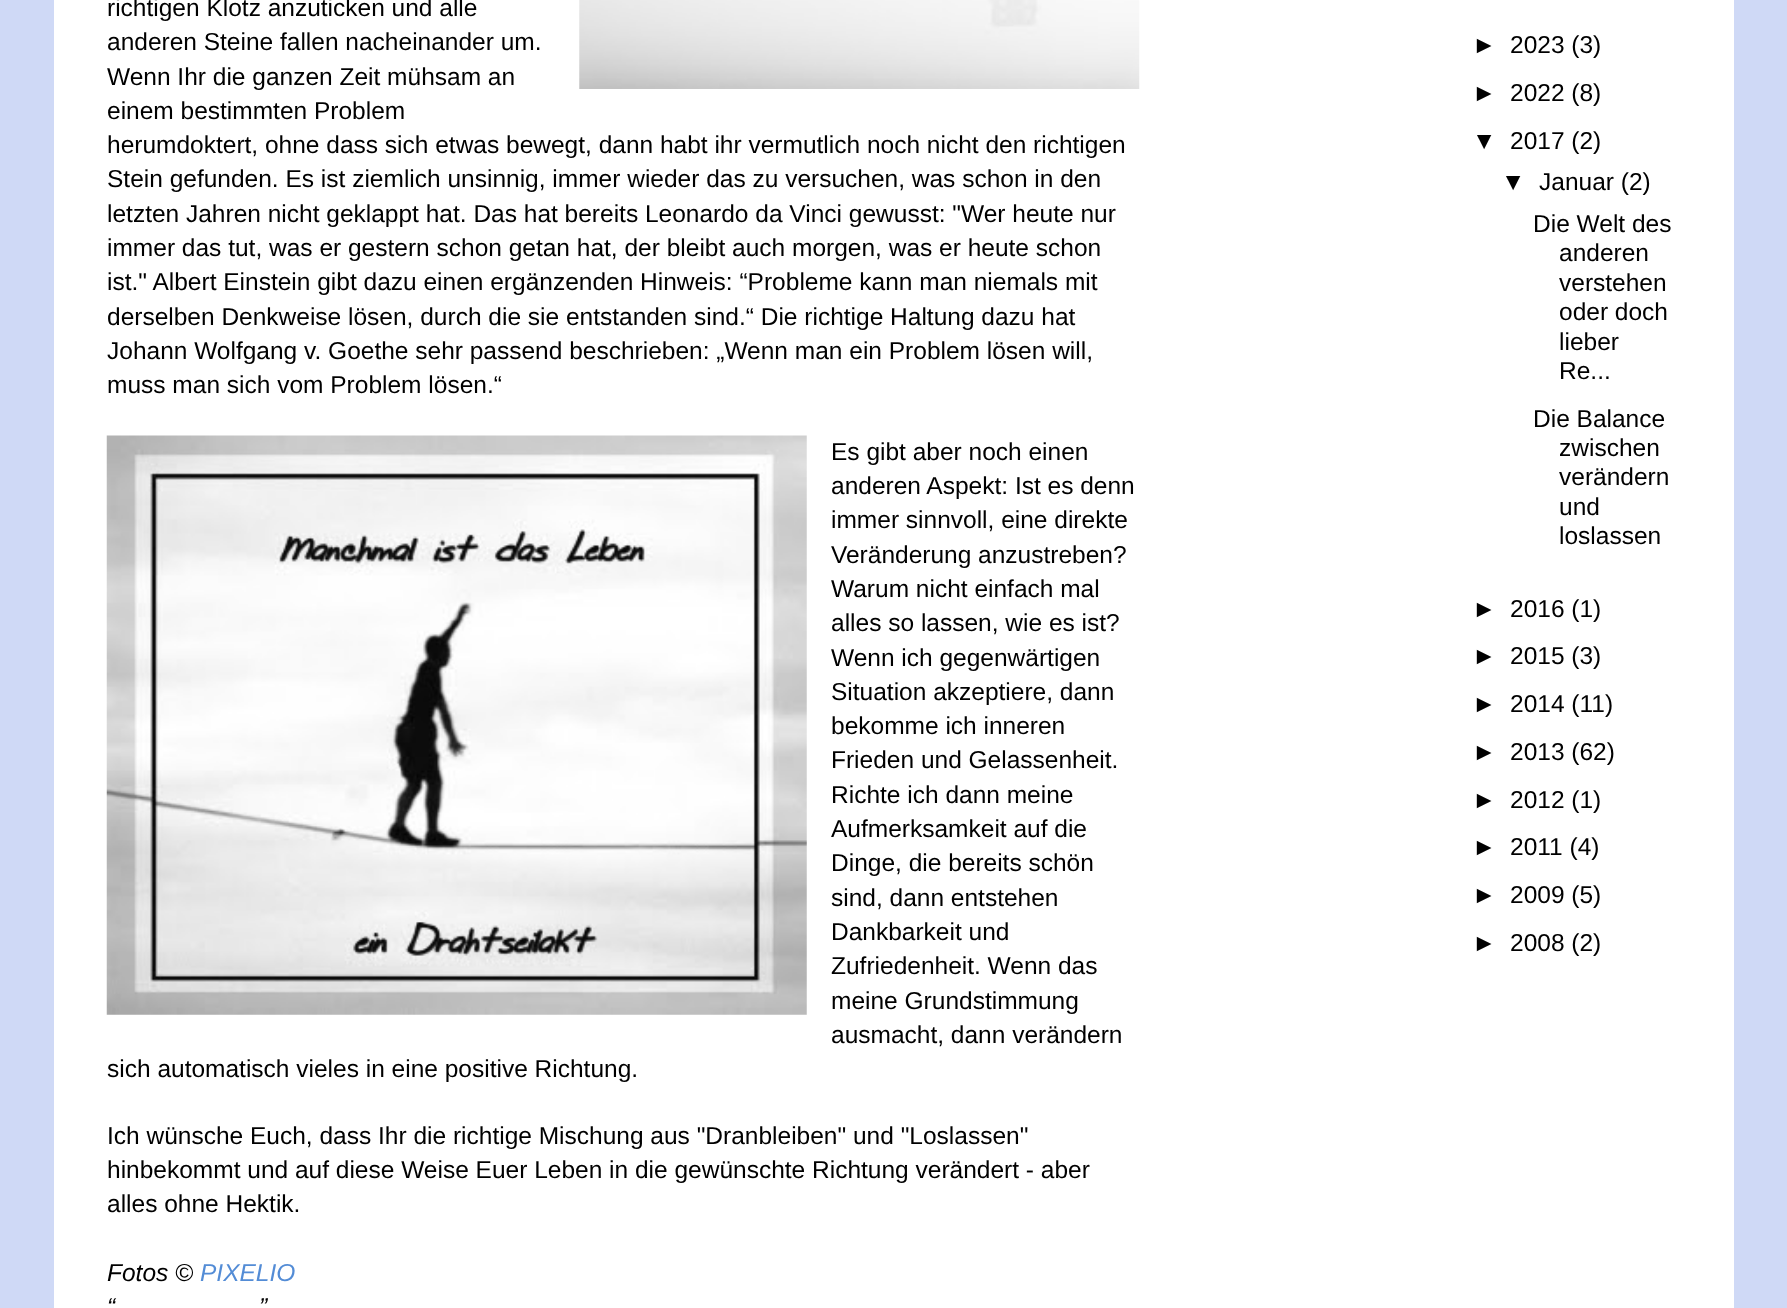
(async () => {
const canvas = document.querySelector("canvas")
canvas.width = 1787
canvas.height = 1308
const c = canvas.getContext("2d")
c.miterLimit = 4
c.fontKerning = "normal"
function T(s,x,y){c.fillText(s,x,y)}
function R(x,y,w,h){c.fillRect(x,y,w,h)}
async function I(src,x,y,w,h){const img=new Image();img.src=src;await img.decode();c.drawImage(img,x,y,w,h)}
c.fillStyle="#cfd9f6"
R(0,0,1787,1308)
c.fillStyle="#fff"
R(54,0,1680,1308)
c.font="24.5px Liberation Sans"
c.fillStyle="#000"
T("richtigen Klotz anzuticken und alle",107,16)
await I("1.png",579,0,561,89)
T("anderen Steine fallen nacheinander um.",107,50)
T("Wenn Ihr die ganzen Zeit mühsam an",107,85)
T("einem bestimmten Problem",107,119)
T("herumdoktert, ohne dass sich etwas bewegt, dann habt ihr vermutlich noch nicht den richtigen",107,153)
T("Stein gefunden. Es ist ziemlich unsinnig, immer wieder das zu versuchen, was schon in den",107,187)
T("letzten Jahren nicht geklappt hat. Das hat bereits Leonardo da Vinci gewusst: \"Wer heute nur",107,222)
T("immer das tut, was er gestern schon getan hat, der bleibt auch morgen, was er heute schon",107,256)
T("ist.\" Albert Einstein gibt dazu einen ergänzenden Hinweis: “Probleme kann man niemals mit",107,290)
T("derselben Denkweise lösen, durch die sie entstanden sind.“ Die richtige Haltung dazu hat",107,325)
T("Johann Wolfgang v. Goethe sehr passend beschrieben: „Wenn man ein Problem lösen will,",107,359)
T("muss man sich vom Problem lösen.“",107,393)
await I("2.png",106,435,701,580)
T("Es gibt aber noch einen",831,460)
T("anderen Aspekt: Ist es denn",831,494)
T("immer sinnvoll, eine direkte",831,528)
T("Veränderung anzustreben?",831,563)
T("Warum nicht einfach mal",831,597)
T("alles so lassen, wie es ist?",831,631)
T("Wenn ich gegenwärtigen",831,666)
T("Situation akzeptiere, dann",831,700)
T("bekomme ich inneren",831,734)
T("Frieden und Gelassenheit.",831,768)
T("Richte ich dann meine",831,803)
T("Aufmerksamkeit auf die",831,837)
T("Dinge, die bereits schön",831,871)
T("sind, dann entstehen",831,906)
T("Dankbarkeit und",831,940)
T("Zufriedenheit. Wenn das",831,974)
T("meine Grundstimmung",831,1009)
T("ausmacht, dann verändern",831,1043)
T("sich automatisch vieles in eine positive Richtung.",107,1077)
T("Ich wünsche Euch, dass Ihr die richtige Mischung aus \"Dranbleiben\" und \"Loslassen\"",107,1144)
T("hinbekommt und auf diese Weise Euer Leben in die gewünschte Richtung verändert - aber",107,1178)
T("alles ohne Hektik.",107,1212)
c.font="italic 24.5px Liberation Sans"
T("Fotos ©",107,1281)
c.fillStyle="#538cd6"
T("PIXELIO",200,1281)
c.fillStyle="#000"
T("“",107,1315)
T("”",259,1315)
c.font="24.5px Liberation Sans"
T("►",1472,53)
T("2023 (3)",1510,53)
T("►",1472,101)
T("2022 (8)",1510,101)
T("▼",1472,149)
T("2017 (2)",1510,149)
T("▼",1501,190)
T("Januar (2)",1539,190)
T("Die Welt des",1533,232)
T("anderen",1559,261)
T("verstehen",1559,291)
T("oder doch",1559,320)
T("lieber",1559,350)
T("Re...",1559,379)
T("Die Balance",1533,427)
T("zwischen",1559,456)
T("verändern",1559,485)
T("und",1559,515)
T("loslassen",1559,544)
T("►",1472,617)
T("2016 (1)",1510,617)
T("►",1472,664)
T("2015 (3)",1510,664)
T("►",1472,712)
T("2014 (11)",1510,712)
T("►",1472,760)
T("2013 (62)",1510,760)
T("►",1472,808)
T("2012 (1)",1510,808)
T("►",1472,855)
T("2011 (4)",1510,855)
T("►",1472,903)
T("2009 (5)",1510,903)
T("►",1472,951)
T("2008 (2)",1510,951)
})()
